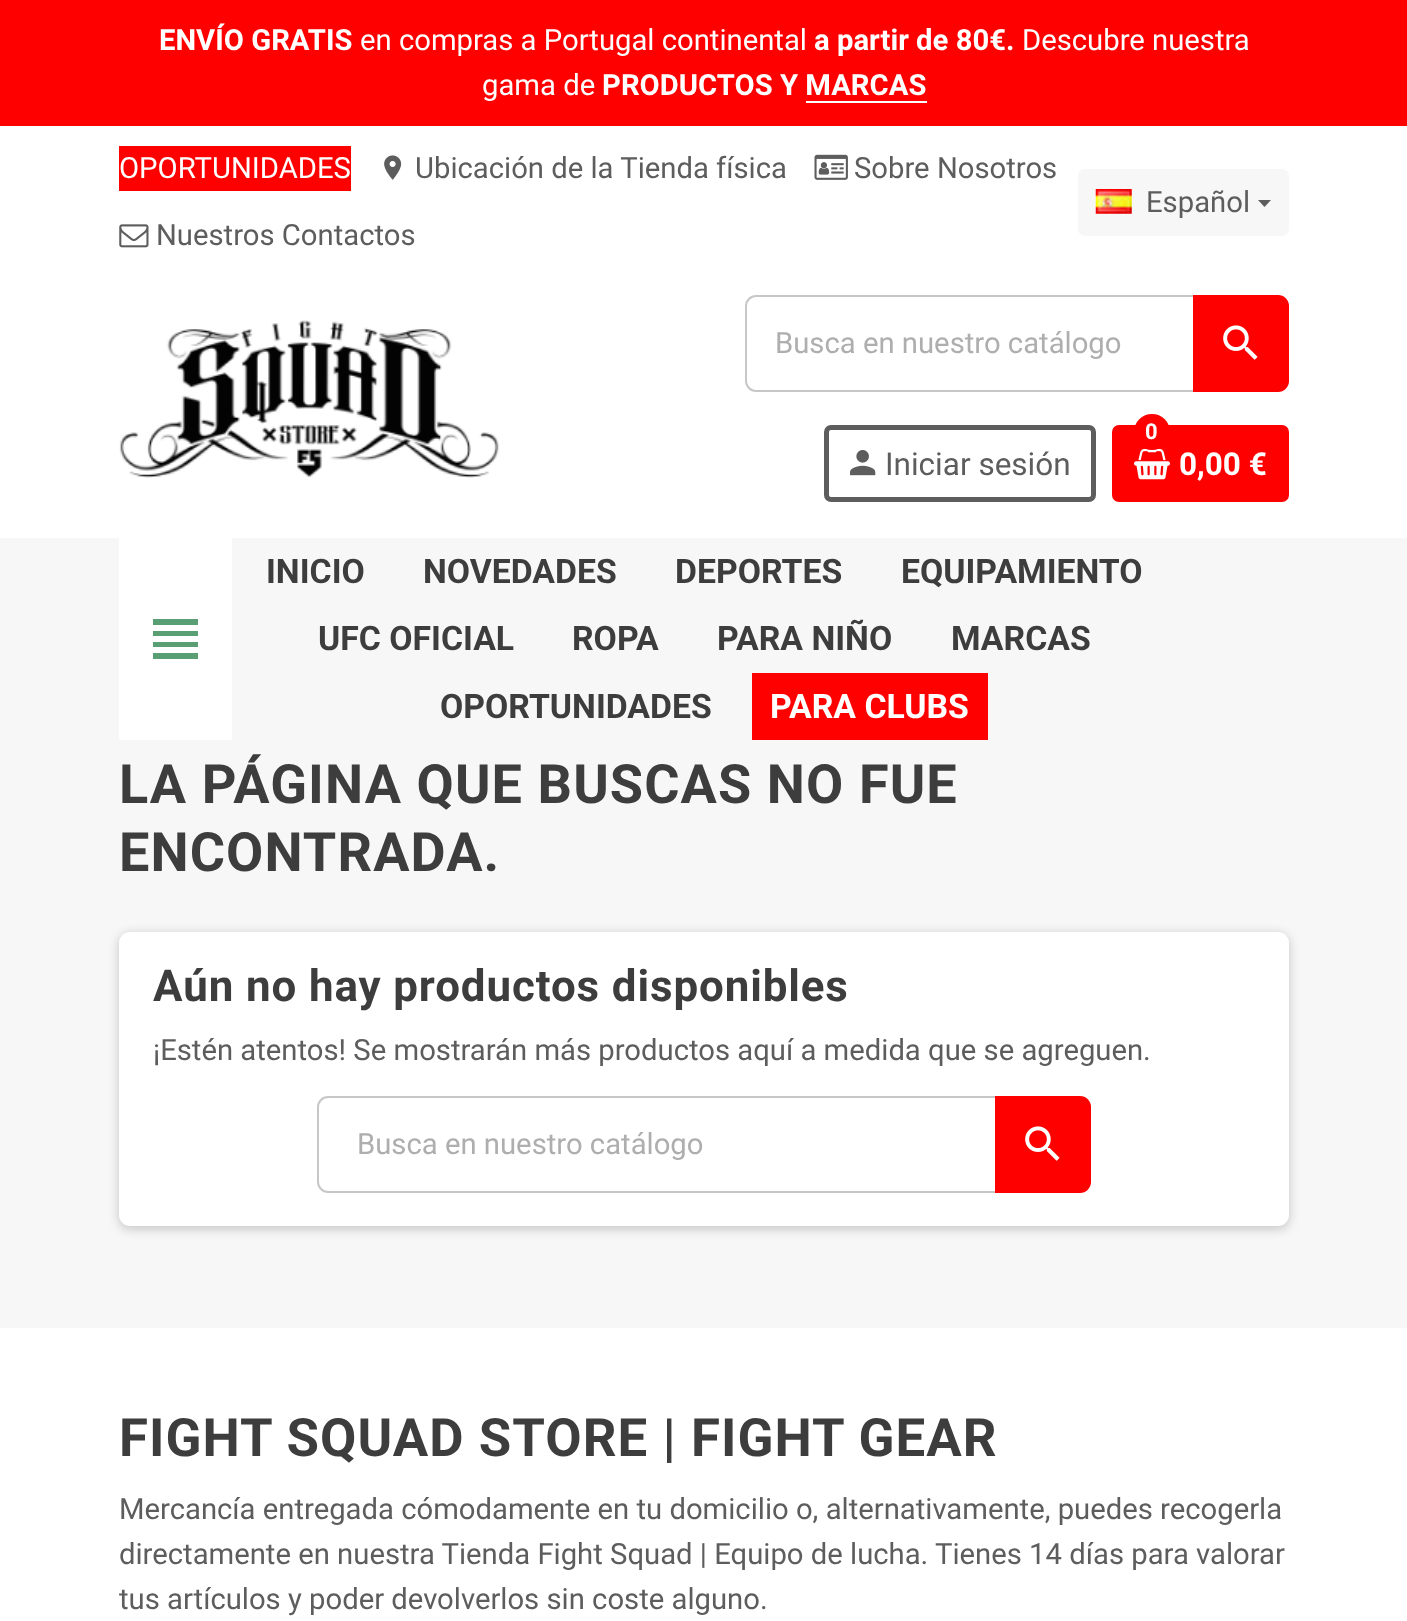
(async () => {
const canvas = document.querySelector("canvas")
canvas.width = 1407
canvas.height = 1621
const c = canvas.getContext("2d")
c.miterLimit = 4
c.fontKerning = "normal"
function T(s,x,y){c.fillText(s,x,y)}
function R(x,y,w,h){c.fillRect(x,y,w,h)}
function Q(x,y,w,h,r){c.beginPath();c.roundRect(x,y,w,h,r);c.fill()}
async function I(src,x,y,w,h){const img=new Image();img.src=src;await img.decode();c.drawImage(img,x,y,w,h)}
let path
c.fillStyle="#fff"
R(0,0,1407,1621)
c.fillStyle="#f00"
R(0,0,1407,126)
c.font="bold 29.25px Roboto"
c.fillStyle="#fff"
T("ENVÍO GRATIS",159,50)
c.font="29.25px Roboto"
T("en compras a Portugal continental",360,50)
c.font="bold 29.25px Roboto"
T("a partir de 80€.",814,50)
c.font="29.25px Roboto"
T("Descubre nuestra",1022,50)
T("gama de",482,95)
c.font="bold 29.25px Roboto"
T("PRODUCTOS Y MARCAS",602,95)
R(806,101,121,2)
c.fillStyle="#f00"
R(119,146,232,45)
c.font="29.25px Roboto"
c.fillStyle="#fff"
T("OPORTUNIDADES",119,178)
await I("1.png",384,155,18,25)
c.fillStyle="#5d5d5d"
T("Ubicación de la Tienda física",415,178)
await I("2.png",814,154,34,26)
T("Sobre Nosotros",854,178)
await I("3.png",119,224,30,24)
T("Nuestros Contactos",156,245)
c.fillStyle="#f7f7f7"
Q(1078,169,211,67,7)
await I("4.png",1095,189,37,25)
c.fillStyle="#5d5d5d"
T("Español",1146,212)
path = new Path2D("M1258 200h13l-6.5 7z")
c.fill(path)
await I("5.png",119,320,381,158)
c.beginPath()
c.roundRect(746,296,540,95,10)
c.strokeStyle="#c7c7c7"
c.lineWidth=2
c.stroke()
c.fillStyle="#aeaeae"
T("Busca en nuestro catálogo",775,353)
c.fillStyle="#f00"
c.beginPath()
c.roundRect(1193,295,96,97,[0,11,11,0])
c.fill()
await I("6.png",1223,325,35,35)
c.beginPath()
c.roundRect(826.5,427.5,267,72,4.5)
c.strokeStyle="#5d5d5d"
c.lineWidth=5
c.stroke()
await I("7.png",850,450,26,26)
c.font="31.5px Roboto"
c.fillStyle="#5d5d5d"
T("Iniciar sesión",885,475)
c.fillStyle="#f00"
Q(1112,425,177,77,7)
await I("8.png",1134,448,36,32)
c.beginPath()
c.arc(1152,432,18,0,7)
c.fill()
c.font="bold 22px Roboto"
c.fillStyle="#fff"
T("0",1145,439)
c.font="bold 31.5px Roboto"
T("0,00 €",1179,475)
c.fillStyle="#f7f7f7"
R(0,538,1407,790)
c.fillStyle="#fff"
R(119,538,113,202)
c.fillStyle="#5a9e74"
path = new Path2D("M153 619h45v6h-45zm0 17v-5h45v5zm0 23v-6h45v6zm0-12v-5h45v5z")
c.fill(path)
c.font="bold 33.75px 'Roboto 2'"
c.fillStyle="#3d3d3d"
T("INICIO",266,583)
T("NOVEDADES",423,583)
T("DEPORTES",675,583)
T("EQUIPAMIENTO",901,583)
T("UFC OFICIAL",318,650)
T("ROPA",572,650)
T("PARA NIÑO",717,650)
T("MARCAS",951,650)
T("OPORTUNIDADES",440,718)
c.fillStyle="#f00"
R(752,673,236,67)
c.fillStyle="#fff"
T("PARA CLUBS",770,718)
c.letterSpacing="1.1px"
c.font="bold 54px 'Roboto 2'"
c.fillStyle="#3d3d3d"
T("LA PÁGINA QUE BUSCAS NO FUE",119,803)
T("ENCONTRADA.",119,871)
c.fillStyle="#00000033"
c.filter="blur(5.5px)"
c.beginPath()
c.roundRect(119,934,1170,295,11)
c.fill()
c.filter="none"
c.fillStyle="#fff"
Q(119,932,1170,294,11)
c.letterSpacing="0.9px"
c.font="bold 43.9px 'Roboto 2'"
c.fillStyle="#3d3d3d"
T("Aún no hay productos disponibles",153,1001)
c.letterSpacing="0px"
c.font="29.25px Roboto"
c.fillStyle="#5d5d5d"
T("¡Estén atentos! Se mostrarán más productos aquí a medida que se agreguen.",153,1060)
c.beginPath()
c.roundRect(318,1097,770,95,10)
c.strokeStyle="#c7c7c7"
c.lineWidth=2
c.stroke()
c.fillStyle="#aeaeae"
T("Busca en nuestro catálogo",357,1154)
c.fillStyle="#f00"
c.beginPath()
c.roundRect(995,1096,96,97,[0,11,11,0])
c.fill()
await I("6.png",1025,1126,35,35)
c.letterSpacing="1.05px"
c.font="bold 52.75px 'Roboto 2'"
c.fillStyle="#3d3d3d"
T("FIGHT SQUAD STORE | FIGHT GEAR",119,1456)
c.letterSpacing="0px"
c.font="29.25px Roboto"
c.fillStyle="#5d5d5d"
T("Mercancía entregada cómodamente en tu domicilio o, alternativamente, puedes recogerla",119,1519)
T("directamente en nuestra Tienda Fight Squad | Equipo de lucha. Tienes 14 días para valorar",119,1564)
T("tus artículos y poder devolverlos sin coste alguno.",119,1609)
})()
